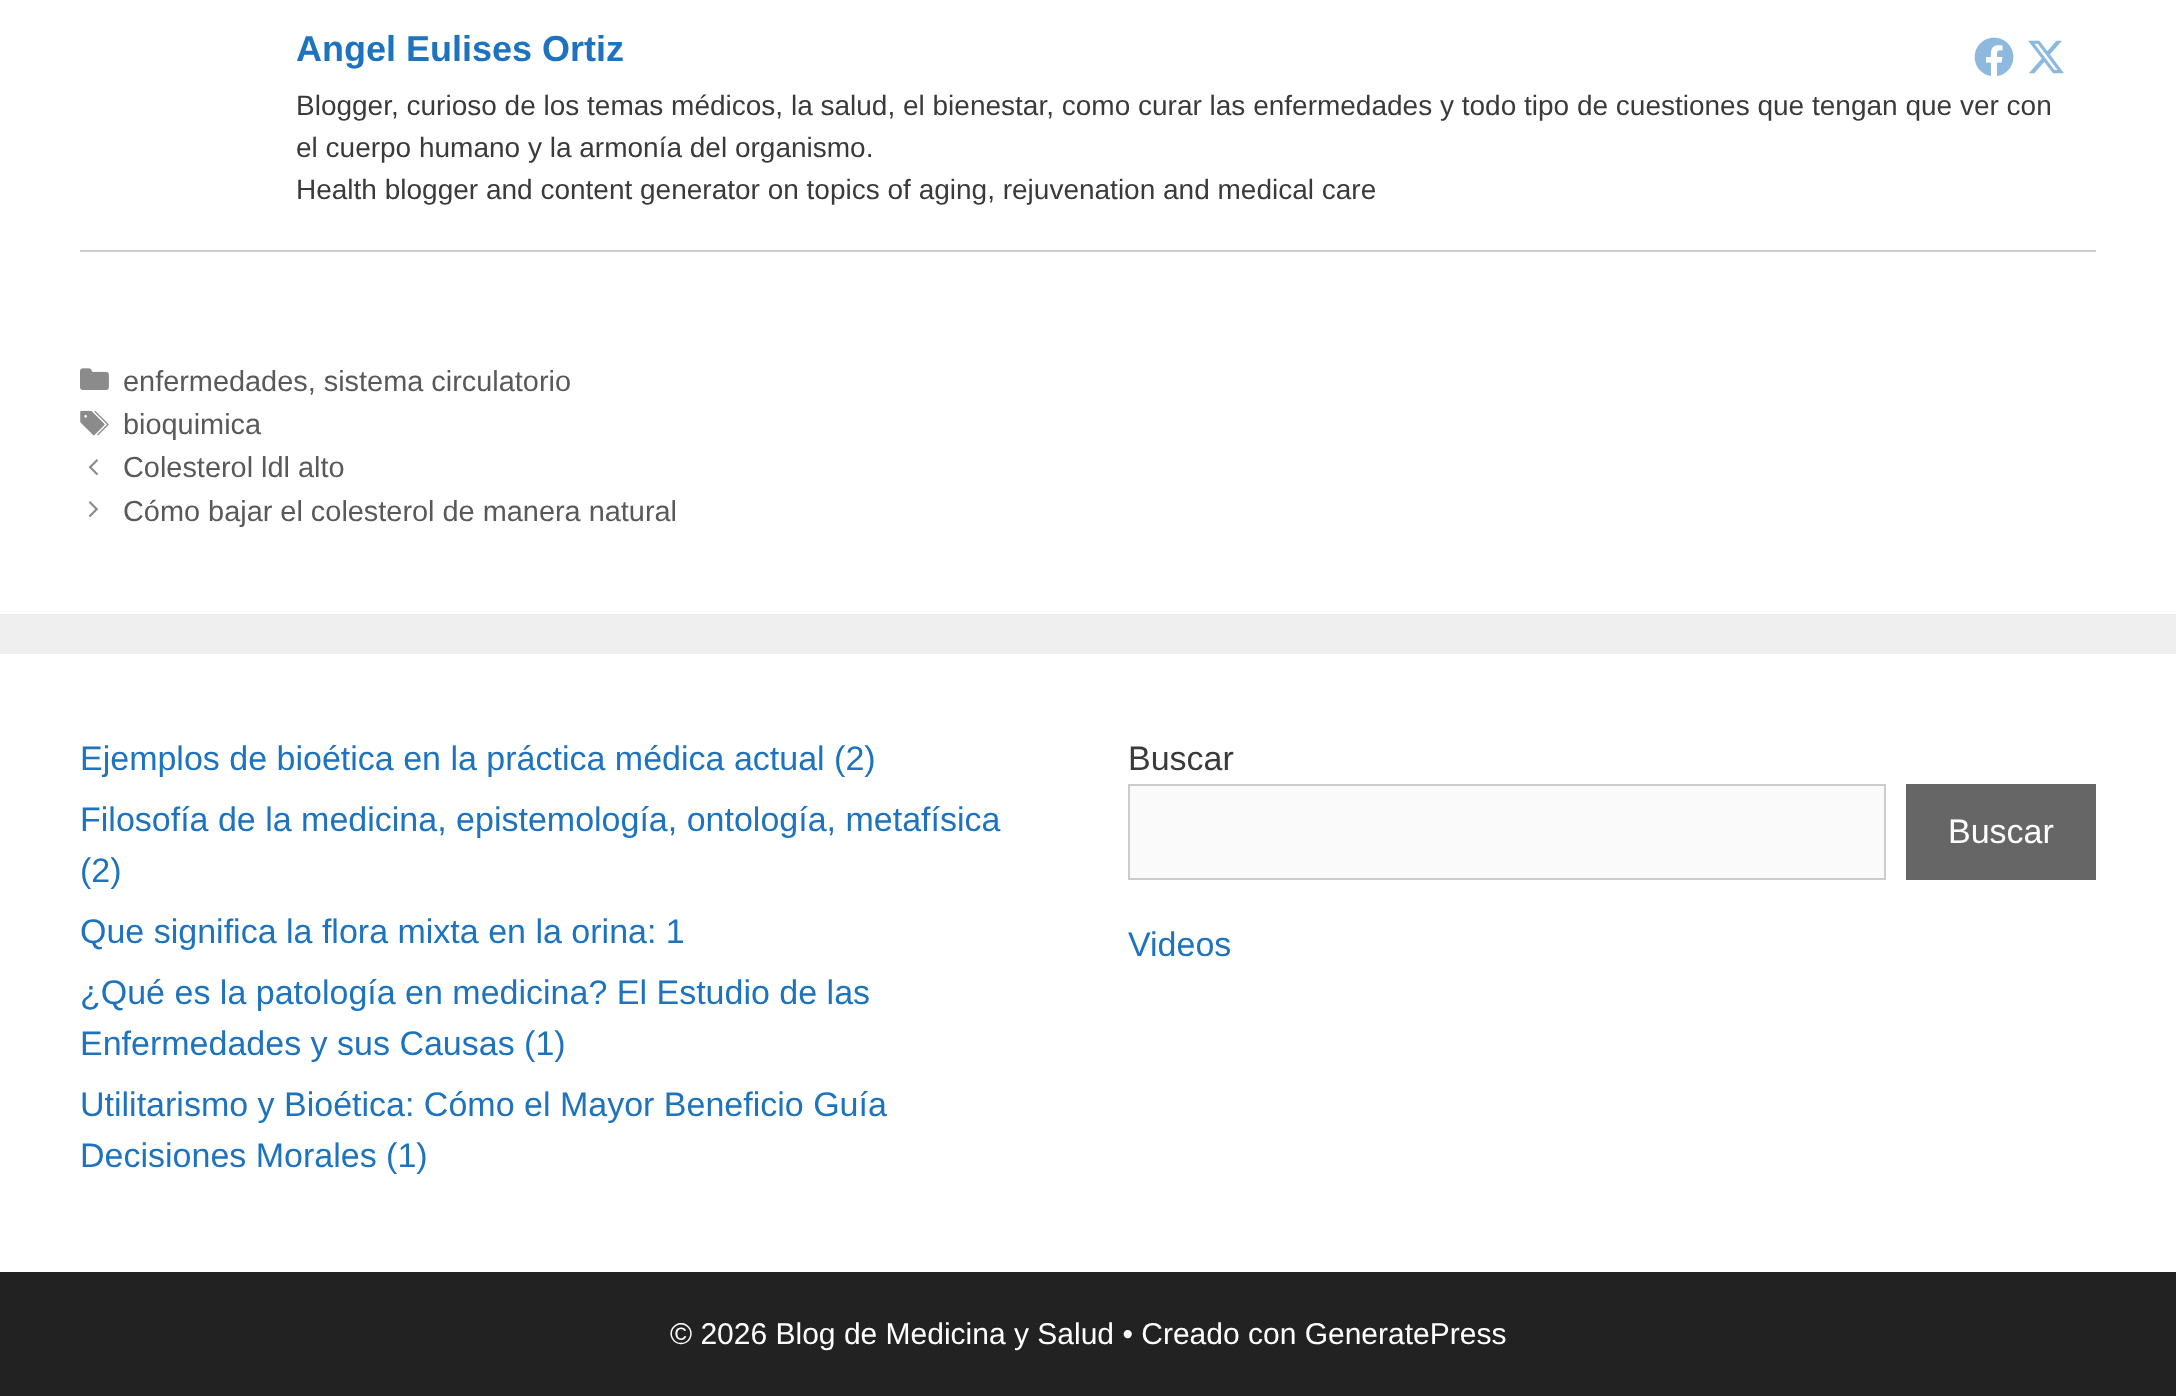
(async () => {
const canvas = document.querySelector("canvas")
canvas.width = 2176
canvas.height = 1396
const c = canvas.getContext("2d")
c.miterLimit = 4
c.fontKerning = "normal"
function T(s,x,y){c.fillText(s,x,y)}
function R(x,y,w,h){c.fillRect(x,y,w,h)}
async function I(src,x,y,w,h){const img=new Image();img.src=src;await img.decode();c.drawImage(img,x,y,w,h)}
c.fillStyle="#efefef"
R(0,0,2176,1396)
c.fillStyle="#fff"
R(0,0,2176,614)
c.fillStyle="#ccc"
R(80,250,2016,2)
c.font="bold 36px Liberation Sans"
c.fillStyle="#1e73be"
T("Angel Eulises Ortiz",296,61)
c.font="28px Liberation Sans"
c.fillStyle="#3a3a3a"
T("Blogger, curioso de los temas médicos, la salud, el bienestar, como curar las enfermedades y todo tipo de cuestiones que tengan que ver con",296,115)
T("el cuerpo humano y la armonía del organismo.",296,157)
T("Health blogger and content generator on topics of aging, rejuvenation and medical care",296,199)
await I("1.png",1974,37,40,39)
await I("2.png",2028,40,36,34)
await I("3.png",80,368,29,22)
c.font="28.9px Liberation Sans"
c.fillStyle="#595959"
T("enfermedades, sistema circulatorio",123,391)
await I("4.png",80,410,29,26)
T("bioquimica",123,434)
await I("5.png",88,459,10,17)
T("Colesterol ldl alto",123,477)
await I("6.png",88,501,10,17)
T("Cómo bajar el colesterol de manera natural",123,521)
c.fillStyle="#fff"
R(0,654,2176,618)
c.font="34px Liberation Sans"
c.fillStyle="#1e73be"
T("Ejemplos de bioética en la práctica médica actual (2)",80,770)
T("Filosofía de la medicina, epistemología, ontología, metafísica",80,831)
T("(2)",80,882)
T("Que significa la flora mixta en la orina: 1",80,943)
T("¿Qué es la patología en medicina? El Estudio de las",80,1004)
T("Enfermedades y sus Causas (1)",80,1055)
T("Utilitarismo y Bioética: Cómo el Mayor Beneficio Guía",80,1116)
T("Decisiones Morales (1)",80,1167)
c.fillStyle="#3a3a3a"
T("Buscar",1128,770)
c.fillStyle="#fafafa"
c.beginPath()
c.rect(1129,785,756,94)
c.fill()
c.strokeStyle="#ccc"
c.lineWidth=2
c.stroke()
c.fillStyle="#666"
R(1906,784,190,96)
c.fillStyle="#fff"
T("Buscar",1948,843)
c.fillStyle="#1e73be"
T("Videos",1128,956)
c.fillStyle="#222"
R(0,1272,2176,124)
c.font="30px Liberation Sans"
c.fillStyle="#fff"
T("© 2026 Blog de Medicina y Salud • Creado con GeneratePress",670,1344)
})()
